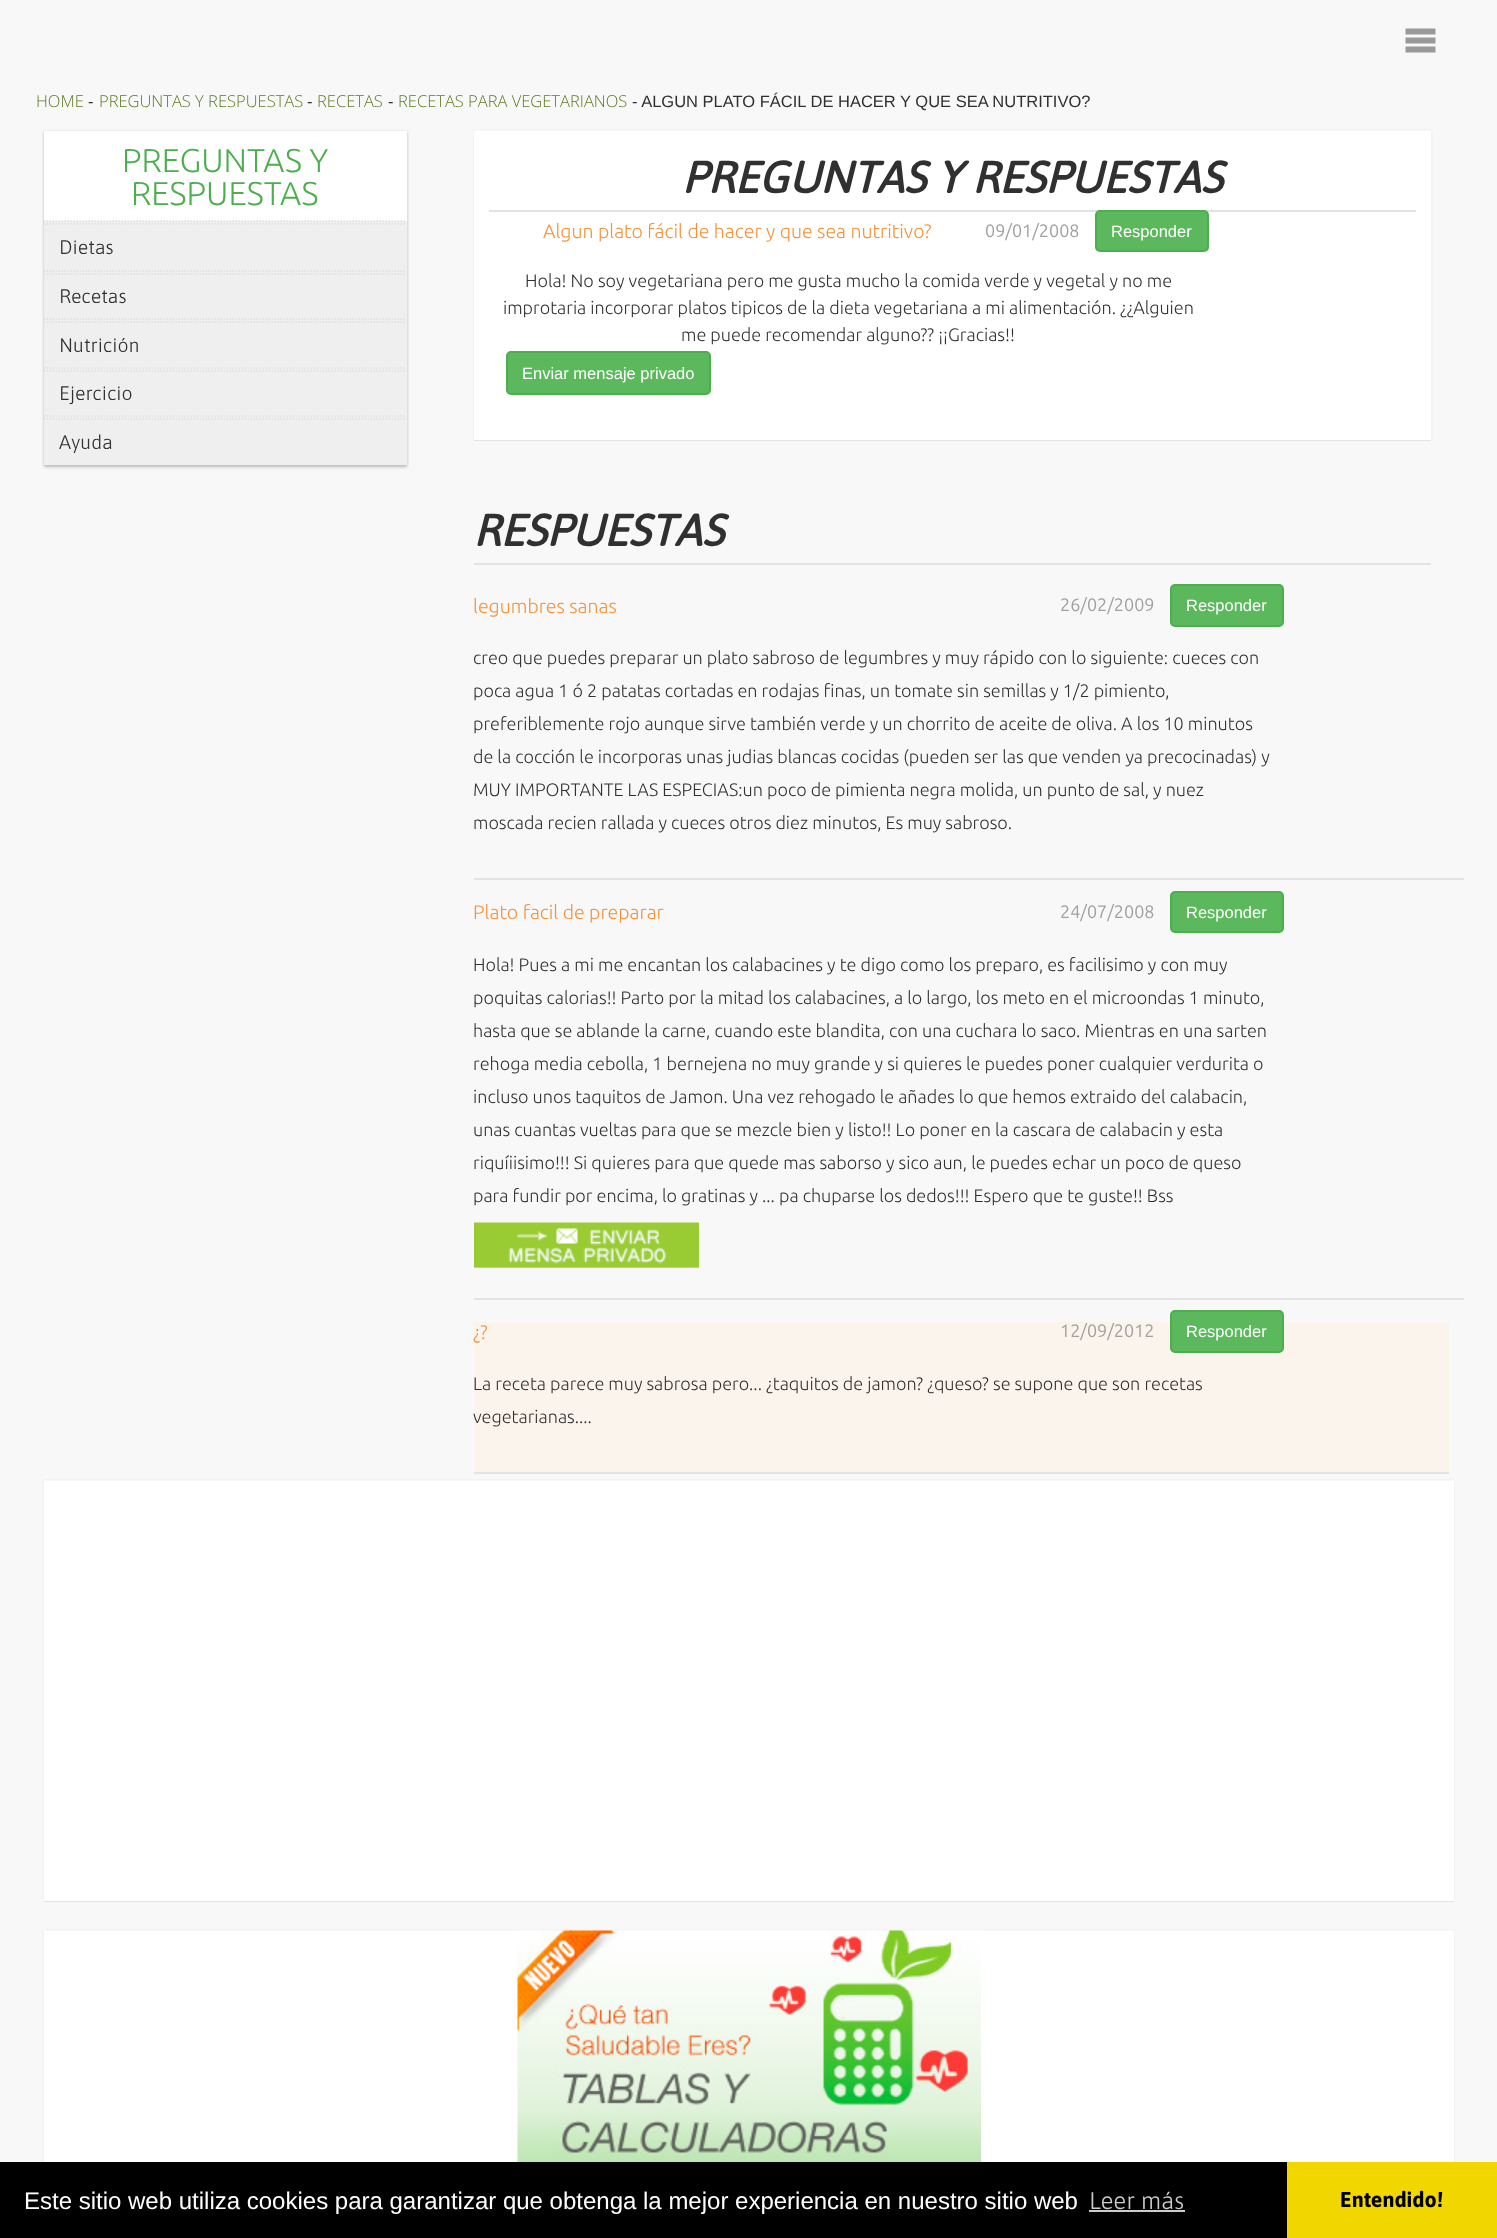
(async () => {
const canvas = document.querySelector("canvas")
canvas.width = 1497
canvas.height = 2238
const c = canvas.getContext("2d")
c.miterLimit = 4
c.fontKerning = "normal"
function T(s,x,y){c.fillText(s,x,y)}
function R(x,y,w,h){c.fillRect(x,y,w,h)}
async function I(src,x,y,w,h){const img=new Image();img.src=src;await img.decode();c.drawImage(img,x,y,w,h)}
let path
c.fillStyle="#f8f8f8"
R(0,0,1497,2238)
await I("1.png",1405,28,31,25)
c.font="300 16.5px Open Sans"
c.fillStyle="#5b791e"
T("HOME",36,107)
c.font="16.5px Liberation Sans"
c.fillStyle="#303030"
T("-",88,107)
c.font="300 16.5px Open Sans"
c.fillStyle="#5b791e"
T("PREGUNTAS Y RESPUESTAS",99,107)
c.font="16.5px Liberation Sans"
c.fillStyle="#303030"
T("-",307,107)
c.font="300 16.5px Open Sans"
c.fillStyle="#5b791e"
T("RECETAS",317,107)
c.font="16.5px Liberation Sans"
c.fillStyle="#303030"
T("-",388,107)
c.font="300 16.5px Open Sans"
c.fillStyle="#5b791e"
T("RECETAS PARA VEGETARIANOS",398,107)
c.font="16.5px Liberation Sans"
c.fillStyle="#303030"
T("- ALGUN PLATO FÁCIL DE HACER Y QUE SEA NUTRITIVO?",632,107)
c.fillStyle="#00000040"
c.filter="blur(1.5px)"
c.beginPath()
c.rect(44,132,363,335)
c.fill()
c.filter="none"
c.fillStyle="#fff"
R(44,131,363,90)
c.font="300 33px Ubuntu"
c.fillStyle="#4cae4c"
T("PREGUNTAS Y",122,172)
T("RESPUESTAS",131,205)
c.fillStyle="#efefef"
R(44,221,363,244)
path = new Path2D("M43.5 221h363")
c.strokeStyle="#dfdfdf"
c.lineWidth=1.5
c.setLineDash([1.5,1.5])
c.stroke(path)
path = new Path2D("M43.5 224h363")
c.stroke(path)
path = new Path2D("M43.5 271h363")
c.stroke(path)
c.font="300 19.5px Asap"
c.fillStyle="#303030"
T("Dietas",59,254)
path = new Path2D("M43.5 274h363")
c.stroke(path)
path = new Path2D("M43.5 319h363")
c.stroke(path)
T("Recetas",59,303)
path = new Path2D("M43.5 322h363")
c.stroke(path)
path = new Path2D("M43.5 368h363")
c.stroke(path)
T("Nutrición",59,352)
path = new Path2D("M43.5 371h363")
c.stroke(path)
path = new Path2D("M43.5 416h363")
c.stroke(path)
T("Ejercicio",59,400)
path = new Path2D("M43.5 419h363")
c.stroke(path)
T("Ayuda",59,449)
c.fillStyle="#f3f3f3"
path = new Path2D("M473 131v309h957h-956v-309z")
c.fill(path)
R(474,129,957,1)
c.fillStyle="#e4e4e4"
R(474,440,957,1)
c.fillStyle="#f3f3f3"
path = new Path2D("M476 440h957v-309h-2v309z")
c.fill(path)
c.fillStyle="#fff"
R(474,131,957,309)
c.fillStyle="#e3e3e3"
R(489,210,927,2)
c.font="italic bold 44.4px Asap"
c.fillStyle="#303030"
T("PREGUNTAS Y RESPUESTAS",682,193)
c.font="300 19.5px Ubuntu"
c.fillStyle="#f39239"
T("Algun plato fácil de hacer y que sea nutritivo?",543,238)
c.font="18px Ubuntu"
c.fillStyle="#a0a0a0"
T("09/01/2008",985,237)
c.fillStyle="#5cb85c"
c.beginPath()
c.roundRect(1096,211,112,40,4)
c.fill()
c.strokeStyle="#4cae4c"
c.lineWidth=2
c.setLineDash([])
c.stroke()
c.font="16.5px Liberation Sans"
c.fillStyle="#fff"
T("Responder",1111,237)
c.font="300 18px Ubuntu"
c.fillStyle="#303030"
T("Hola! No soy vegetariana pero me gusta mucho la comida verde y vegetal y no me",525,287)
T("improtaria incorporar platos tipicos de la dieta vegetariana a mi alimentación. ¿¿Alguien",503,314)
T("me puede recomendar alguno?? ¡¡Gracias!!",681,341)
c.fillStyle="#5cb85c"
c.beginPath()
c.roundRect(507,352,203,42,4)
c.fill()
c.stroke()
c.font="16.5px Liberation Sans"
c.fillStyle="#fff"
T("Enviar mensaje privado",522,379)
c.fillStyle="#e3e3e3"
R(474,563,957,2)
c.font="italic bold 44.4px Asap"
c.fillStyle="#303030"
T("RESPUESTAS",473,546)
c.fillStyle="#e3e3e3"
R(474,878,990,2)
c.font="300 19.5px Ubuntu"
c.fillStyle="#f39239"
T("legumbres sanas",473,613)
c.font="18px Ubuntu"
c.fillStyle="#a0a0a0"
T("26/02/2009",1060,611)
c.fillStyle="#5cb85c"
c.beginPath()
c.roundRect(1171,585,112,41,4)
c.fill()
c.stroke()
c.font="16.5px Liberation Sans"
c.fillStyle="#fff"
T("Responder",1186,611)
c.font="300 18px Ubuntu"
c.fillStyle="#303030"
T("creo que puedes preparar un plato sabroso de legumbres y muy rápido con lo siguiente: cueces con",473,664)
T("poca agua 1 ó 2 patatas cortadas en rodajas finas, un tomate sin semillas y 1/2 pimiento,",473,697)
T("preferiblemente rojo aunque sirve también verde y un chorrito de aceite de oliva. A los 10 minutos",473,730)
T("de la cocción le incorporas unas judias blancas cocidas (pueden ser las que venden ya precocinadas) y",473,763)
T("MUY IMPORTANTE LAS ESPECIAS:un poco de pimienta negra molida, un punto de sal, y nuez",473,796)
T("moscada recien rallada y cueces otros diez minutos, Es muy sabroso.",473,829)
c.fillStyle="#e3e3e3"
R(474,1298,990,2)
c.font="300 19.5px Ubuntu"
c.fillStyle="#f39239"
T("Plato facil de preparar",473,919)
c.font="18px Ubuntu"
c.fillStyle="#a0a0a0"
T("24/07/2008",1060,918)
c.fillStyle="#5cb85c"
c.beginPath()
c.roundRect(1171,892,112,40,4)
c.fill()
c.stroke()
c.font="16.5px Liberation Sans"
c.fillStyle="#fff"
T("Responder",1186,918)
c.font="300 18px Ubuntu"
c.fillStyle="#303030"
T("Hola! Pues a mi me encantan los calabacines y te digo como los preparo, es facilisimo y con muy",473,971)
T("poquitas calorias!! Parto por la mitad los calabacines, a lo largo, los meto en el microondas 1 minuto,",473,1004)
T("hasta que se ablande la carne, cuando este blandita, con una cuchara lo saco. Mientras en una sarten",473,1037)
T("rehoga media cebolla, 1 bernejena no muy grande y si quieres le puedes poner cualquier verdurita o",473,1070)
T("incluso unos taquitos de Jamon. Una vez rehogado le añades lo que hemos extraido del calabacin,",473,1103)
T("unas cuantas vueltas para que se mezcle bien y listo!! Lo poner en la cascara de calabacin y esta",473,1136)
T("riquíiisimo!!! Si quieres para que quede mas saborso y sico aun, le puedes echar un poco de queso",473,1169)
T("para fundir por encima, lo gratinas y ... pa chuparse los dedos!!! Espero que te guste!! Bss",473,1202)
c.fillStyle="#f2dcc6"
R(474,1267,225,1)
await I("2.png",474,1222,225,46)
c.fillStyle="#fbf4ed"
R(474,1322,975,150)
c.fillStyle="#e3e3e3"
R(474,1472,975,2)
c.font="300 19.5px Ubuntu"
c.fillStyle="#f39239"
T("¿?",473,1339)
c.font="18px Ubuntu"
c.fillStyle="#a0a0a0"
T("12/09/2012",1060,1337)
c.fillStyle="#5cb85c"
c.beginPath()
c.roundRect(1171,1311,112,41,4)
c.fill()
c.stroke()
c.font="16.5px Liberation Sans"
c.fillStyle="#fff"
T("Responder",1186,1337)
c.font="300 18px Ubuntu"
c.fillStyle="#303030"
T("La receta parece muy sabrosa pero... ¿taquitos de jamon? ¿queso? se supone que son recetas",473,1390)
T("vegetarianas....",473,1423)
c.fillStyle="#f3f3f3"
path = new Path2D("M42 1481v420h1410v-1h-1408v-419z")
c.fill(path)
path = new Path2D("M44 1479v1h1410v419v-420z")
c.fill(path)
c.fillStyle="#e4e4e4"
path = new Path2D("M44 1900v2h1410v-420v418z")
c.fill(path)
c.fillStyle="#f3f3f3"
path = new Path2D("M45 1900v1h1410v-420h-1v419z")
c.fill(path)
c.fillStyle="#fff"
R(44,1481,1410,420)
c.fillStyle="#f3f3f3"
path = new Path2D("M42 1931v270h1410v-1h-1408v-269z")
c.fill(path)
path = new Path2D("M44 1929v1h1410v269v-270z")
c.fill(path)
path = new Path2D("M45 2200v1h1410v-270h-1v269z")
c.fill(path)
c.fillStyle="#fff"
R(44,1931,1410,231)
await I("3.png",517,1930,464,232)
c.fillStyle="#000"
R(0,2162,1287,76)
c.font="24px Liberation Sans"
c.fillStyle="#fff"
T("Este sitio web utiliza cookies para garantizar que obtenga la mejor experiencia en nuestro sitio web",24,2209)
c.font="300 24px Asap"
c.fillStyle="#ccc"
T("Leer más",1089,2209)
R(1089,2210,96,2)
c.fillStyle="#f1d600"
R(1287,2162,210,76)
c.font="bold 21.5px Asap"
c.fillStyle="#000"
T("Entendido!",1340,2207)
})()
